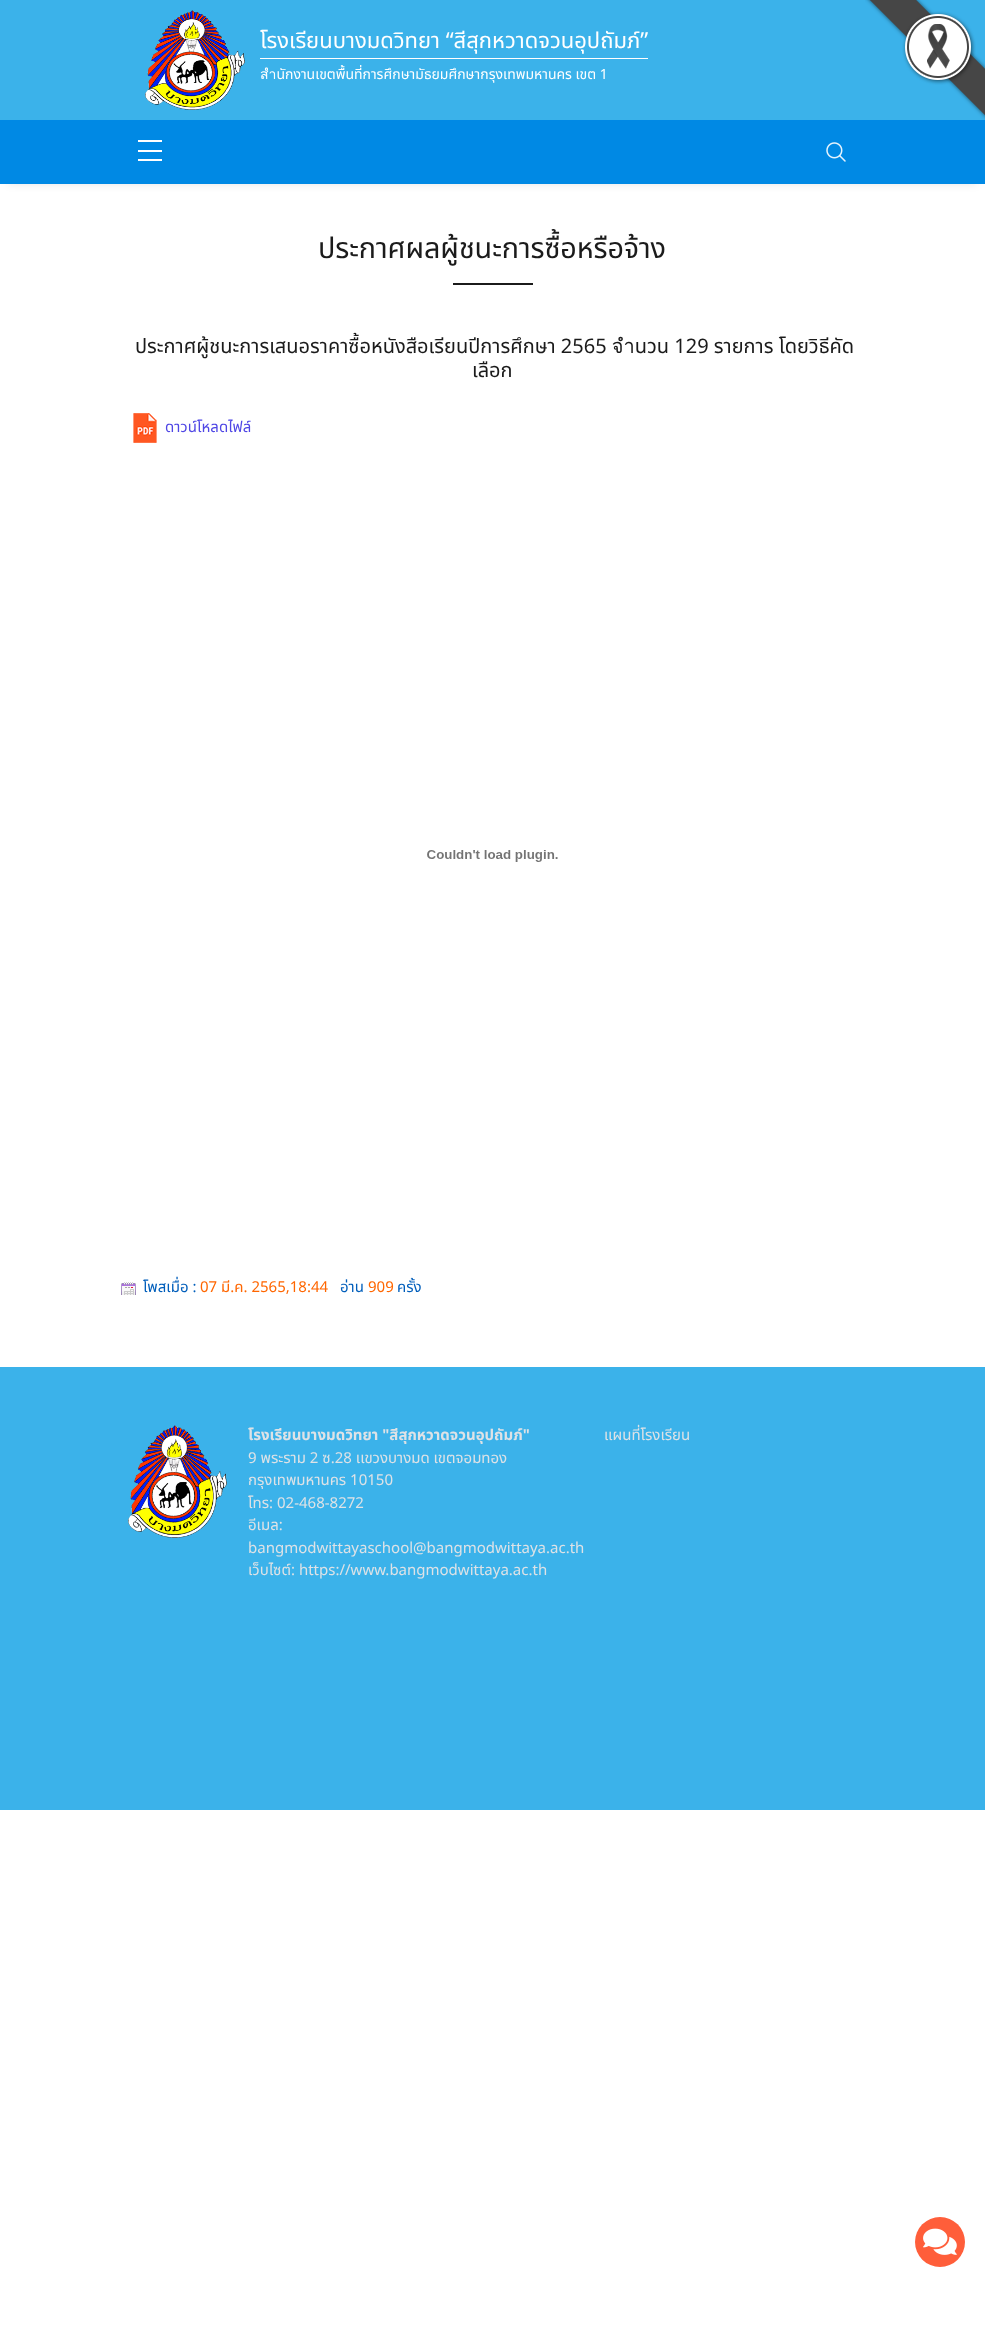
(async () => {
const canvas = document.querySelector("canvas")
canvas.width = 985
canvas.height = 2347
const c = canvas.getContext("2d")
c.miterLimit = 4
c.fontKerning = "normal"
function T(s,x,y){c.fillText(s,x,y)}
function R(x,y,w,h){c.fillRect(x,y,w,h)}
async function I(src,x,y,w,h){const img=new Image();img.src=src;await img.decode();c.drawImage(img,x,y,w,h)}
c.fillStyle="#fff"
R(0,0,985,2347)
c.fillStyle="#3bb2ea"
R(0,0,985,120)
await I("1.png",145,10,100,100)
c.fillStyle="#fff"
R(260,58,388,1)
c.font="22px Noto Sans Thai"
T("โรงเรียนบางมดวิทยา “สีสุกหวาดจวนอุปถัมภ์”",260,48)
c.font="14px Noto Sans Thai"
T("สำนักงานเขตพื้นที่การศึกษามัธยมศึกษากรุงเทพมหานคร เขต 1",260,79)
await I("2.png",865,0,120,120)
c.fillStyle="#0000001a"
c.filter="blur(4px)"
c.beginPath()
c.rect(8,136,969,48)
c.fill()
c.filter="none"
c.fillStyle="#0089e4"
R(0,120,985,64)
c.fillStyle="#fff"
R(138,140,24,2)
R(138,150,24,2)
R(138,159,24,2)
await I("3.png",826,142,20,20)
c.letterSpacing="-0.1px"
c.font="28.75px Noto Sans Thai"
c.fillStyle="#1b1b1b"
T("ประกาศผลผู้ชนะการซื้อหรือจ้าง",318,258)
R(453,283,80,2)
c.letterSpacing="0px"
c.font="20px Noto Sans Thai"
T("ประกาศผู้ชนะการเสนอราคาซื้อหนังสือเรียนปีการศึกษา 2565 จำนวน 129 รายการ โดยวิธีคัด",135,353)
T("เลือก",472,377)
await I("4.png",133,413,24,30)
c.font="15px Noto Sans Thai"
c.fillStyle="#4f46e5"
T("ดาวน์โหลดไฟล์",165,432)
await I("5.png",427,850,131,12)
await I("6.png",121,1282,15,13)
c.fillStyle="#005ebb"
T("โพสเมื่อ :",143,1292)
c.fillStyle="#f60"
T("07 มี.ค. 2565,18:44",200,1292)
c.fillStyle="#005ebb"
T("อ่าน",340,1292)
c.fillStyle="#f60"
T("909",368,1292)
c.fillStyle="#005ebb"
T("ครั้ง",397,1292)
c.fillStyle="#3bb2ea"
R(0,1367,985,443)
await I("7.png",128,1425,99,113)
c.font="bold 15px Noto Sans Thai"
c.fillStyle="#dee2e6"
T("โรงเรียนบางมดวิทยา \"สีสุกหวาดจวนอุปถัมภ์\"",248,1440)
c.font="15px Noto Sans Thai"
T("9 พระราม 2 ซ.28 เเขวงบางมด เขตจอมทอง",248,1463)
T("กรุงเทพมหานคร 10150",248,1485)
T("โทร: 02-468-8272",248,1508)
T("อีเมล:",248,1530)
T("bangmodwittayaschool@bangmodwittaya.ac.th",248,1553)
T("เว็บไซต์: https://www.bangmodwittaya.ac.th",248,1575)
T("แผนที่โรงเรียน",604,1440)
c.fillStyle="#ff5e3a"
c.beginPath()
c.arc(940,2242,25,0,7)
c.fill()
await I("8.png",923,2228,34,27)
})()
